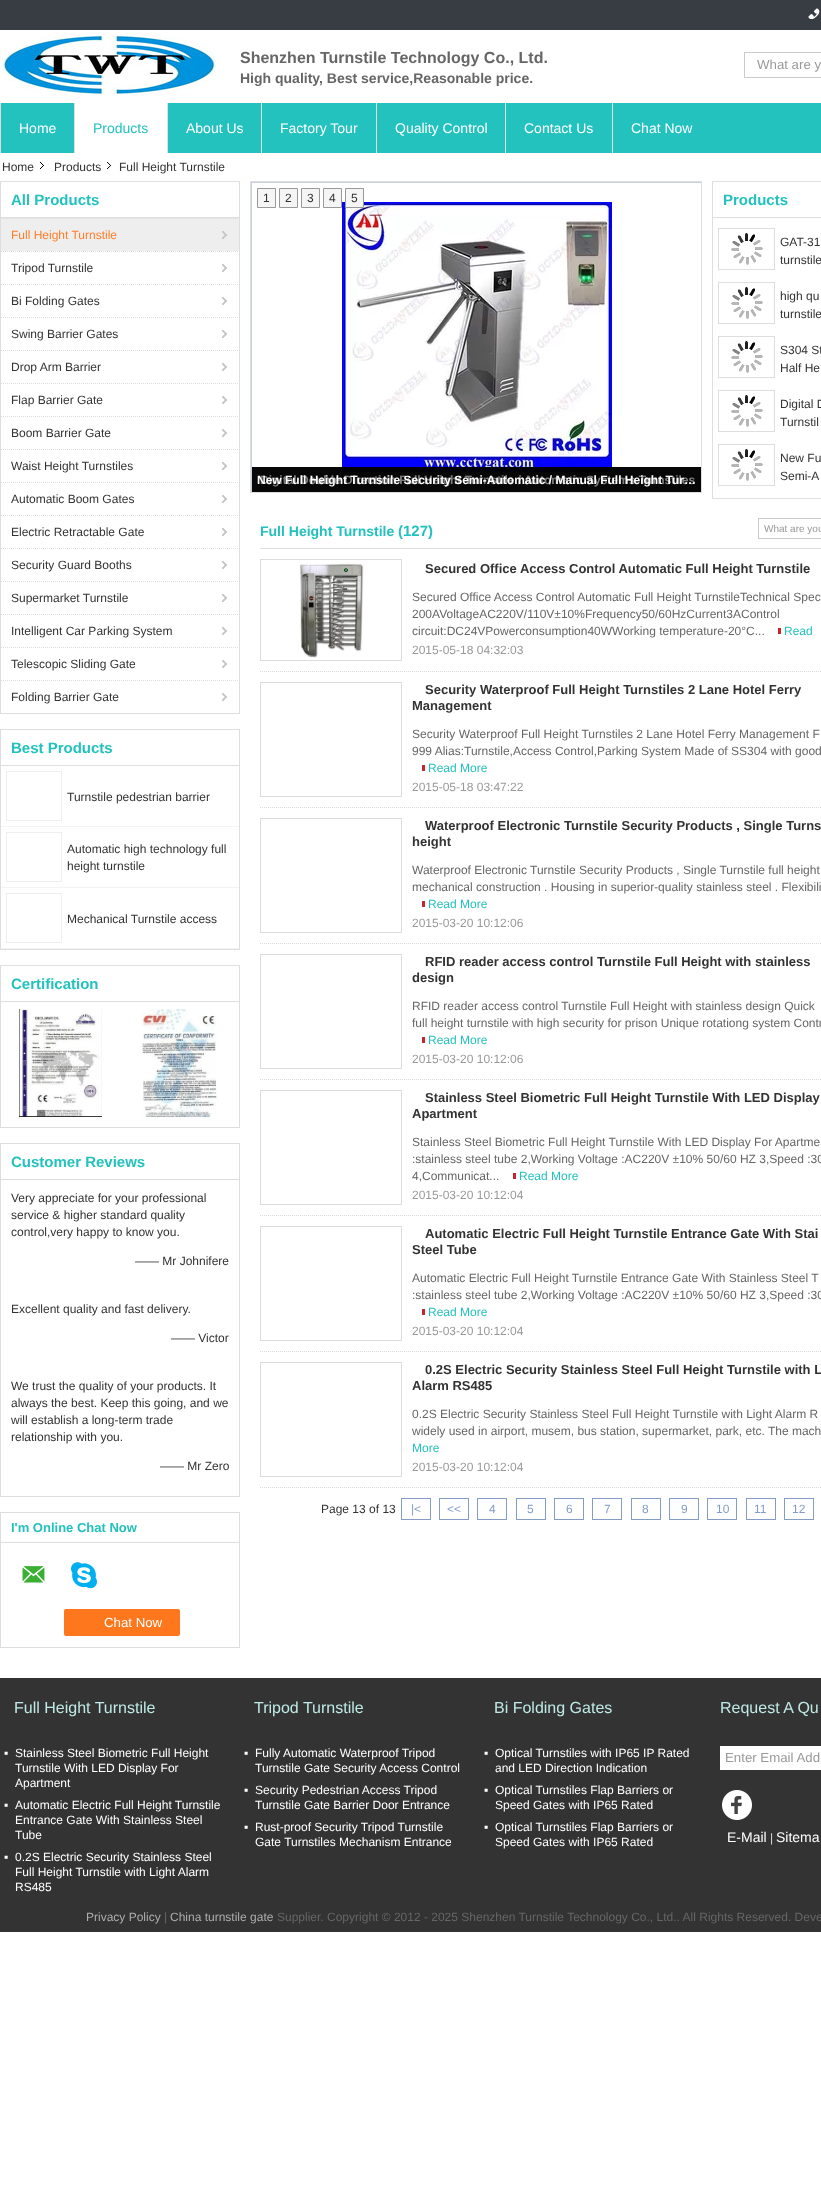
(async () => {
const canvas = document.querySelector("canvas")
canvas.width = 821
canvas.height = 2208
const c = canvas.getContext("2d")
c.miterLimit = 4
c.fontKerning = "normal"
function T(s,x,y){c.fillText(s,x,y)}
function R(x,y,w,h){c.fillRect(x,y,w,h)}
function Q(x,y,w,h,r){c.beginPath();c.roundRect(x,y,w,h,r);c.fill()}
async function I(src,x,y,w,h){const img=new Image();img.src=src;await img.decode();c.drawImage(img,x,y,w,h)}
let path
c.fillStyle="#fff"
R(0,0,821,2208)
c.fillStyle="#373d43"
R(0,0,821,30)
await I("1.png",808,8,12,11)
await I("2.png",0,35,216,60)
c.font="bold 16px Liberation Sans"
c.fillStyle="#666"
T("Shenzhen Turnstile Technology Co., Ltd.",240,63)
c.font="bold 14px Liberation Sans"
T("High quality, Best service,Reasonable price.",240,83)
c.fillStyle="#ccc"
R(744,52,77,1)
R(744,77,77,1)
R(744,52,1,26)
c.font="13.25px Liberation Sans"
c.fillStyle="#999"
T("What are y",757,69)
c.fillStyle="#23c2be"
R(1,103,820,50)
c.fillStyle="#dedede"
R(0,103,1,50)
c.font="14px Liberation Sans"
c.fillStyle="#fff"
T("Home",19,133)
R(75,103,92,50)
c.fillStyle="#dedede"
R(74,103,1,50)
c.fillStyle="#23c2be"
T("Products",93,133)
c.fillStyle="#dedede"
R(167,103,1,50)
c.fillStyle="#fff"
T("About Us",186,133)
c.fillStyle="#dedede"
R(261,103,1,50)
c.fillStyle="#fff"
T("Factory Tour",280,133)
c.fillStyle="#dedede"
R(376,103,1,50)
c.fillStyle="#fff"
T("Quality Control",395,133)
c.fillStyle="#dedede"
R(505,103,1,50)
c.fillStyle="#fff"
T("Contact Us",524,133)
c.fillStyle="#dedede"
R(612,103,1,50)
c.fillStyle="#fff"
T("Chat Now",631,133)
await I("3.png",40,162,4,7)
c.font="12px Liberation Sans"
c.fillStyle="#333"
T("Home",2,171)
await I("4.png",107,162,5,7)
T("Products",54,171)
T("Full Height Turnstile",119,171)
c.strokeStyle="#dedede"
c.strokeRect(.5,181.5,239,532)
c.fillStyle="#dedede"
R(1,217,238,1)
c.font="bold 15px Liberation Sans"
c.fillStyle="#23c2be"
T("All Products",11,205)
c.fillStyle="#eee"
R(1,218,238,33)
path = new Path2D("M1 218.5h238")
c.setLineDash([1,1])
c.stroke(path)
c.font="12px Liberation Sans"
c.fillStyle="#ff7d29"
T("Full Height Turnstile",11,239)
await I("5.png",222,231,5,8)
path = new Path2D("M1 251.5h238")
c.stroke(path)
c.fillStyle="#333"
T("Tripod Turnstile",11,272)
await I("6.png",222,264,5,8)
path = new Path2D("M1 284.5h238")
c.stroke(path)
T("Bi Folding Gates",11,305)
await I("6.png",222,297,5,8)
path = new Path2D("M1 317.5h238")
c.stroke(path)
T("Swing Barrier Gates",11,338)
await I("6.png",222,330,5,8)
path = new Path2D("M1 350.5h238")
c.stroke(path)
T("Drop Arm Barrier",11,371)
await I("6.png",222,363,5,8)
path = new Path2D("M1 383.5h238")
c.stroke(path)
T("Flap Barrier Gate",11,404)
await I("6.png",222,396,5,8)
path = new Path2D("M1 416.5h238")
c.stroke(path)
T("Boom Barrier Gate",11,437)
await I("6.png",222,429,5,8)
path = new Path2D("M1 449.5h238")
c.stroke(path)
T("Waist Height Turnstiles",11,470)
await I("6.png",222,462,5,8)
path = new Path2D("M1 482.5h238")
c.stroke(path)
T("Automatic Boom Gates",11,503)
await I("6.png",222,495,5,8)
path = new Path2D("M1 515.5h238")
c.stroke(path)
T("Electric Retractable Gate",11,536)
await I("6.png",222,528,5,8)
path = new Path2D("M1 548.5h238")
c.stroke(path)
T("Security Guard Booths",11,569)
await I("6.png",222,561,5,8)
path = new Path2D("M1 581.5h238")
c.stroke(path)
T("Supermarket Turnstile",11,602)
await I("6.png",222,594,5,8)
path = new Path2D("M1 614.5h238")
c.stroke(path)
T("Intelligent Car Parking System",11,635)
await I("6.png",222,627,5,8)
path = new Path2D("M1 647.5h238")
c.stroke(path)
T("Telescopic Sliding Gate",11,668)
await I("6.png",222,660,5,8)
path = new Path2D("M1 680.5h238")
c.stroke(path)
T("Folding Barrier Gate",11,701)
await I("6.png",222,693,5,8)
c.setLineDash([])
c.strokeRect(.5,729.5,239,220)
c.fillStyle="#dedede"
R(1,765,238,1)
c.font="bold 15px Liberation Sans"
c.fillStyle="#23c2be"
T("Best Products",11,753)
c.fillStyle="#f0f4f6"
R(1,826,238,1)
c.strokeStyle="#eee"
c.strokeRect(6.5,771.5,55,49)
c.font="12px Liberation Sans"
c.fillStyle="#333"
T("Turnstile pedestrian barrier",67,801)
c.fillStyle="#f0f4f6"
R(1,887,238,1)
c.strokeRect(6.5,832.5,55,49)
c.fillStyle="#333"
T("Automatic high technology full",67,853)
T("height turnstile",67,870)
c.fillStyle="#f0f4f6"
R(1,948,238,1)
c.strokeRect(6.5,893.5,55,49)
c.fillStyle="#333"
T("Mechanical Turnstile access",67,923)
c.strokeStyle="#dedede"
c.strokeRect(.5,965.5,239,162)
c.fillStyle="#dedede"
R(1,1001,238,1)
c.font="bold 15px Liberation Sans"
c.fillStyle="#23c2be"
T("Certification",11,989)
await I("7.png",19,1009,83,108)
await I("8.png",140,1009,78,108)
c.strokeRect(.5,1143.5,239,353)
c.fillStyle="#dedede"
R(1,1179,238,1)
c.fillStyle="#23c2be"
T("Customer Reviews",11,1167)
c.font="12px Liberation Sans"
c.fillStyle="#333"
T("Very appreciate for your professional",11,1202)
T("service & higher standard quality",11,1219)
T("control,very happy to know you.",11,1236)
T("—— Mr Johnifere",135,1265)
T("Excellent quality and fast delivery.",11,1313)
T("—— Victor",171,1342)
T("We trust the quality of your products. It",11,1390)
T("always the best. Keep this going, and we",11,1407)
T("will establish a long-term trade",11,1424)
T("relationship with you.",11,1441)
T("—— Mr Zero",160,1470)
c.strokeRect(.5,1512.5,239,135)
c.fillStyle="#dedede"
R(1,1542,238,1)
c.font="bold 13px Liberation Sans"
c.fillStyle="#23c2be"
T("I'm Online Chat Now",11,1532)
await I("9.png",22,1566,23,17)
await I("10.png",71,1562,26,27)
c.fillStyle="#ff771c"
Q(64,1609,116,27,2)
c.font="13.25px Liberation Sans"
c.fillStyle="#fff"
T("Chat Now",104,1627)
c.strokeRect(250.5,181.5,451,311)
c.save()
c.beginPath()
c.rect(251,182,450,310)
c.clip()
c.strokeStyle="#c6d2e0"
c.strokeRect(251.5,182.5,451,311)
c.restore()
c.fillStyle="#f5f5f5"
c.beginPath()
c.rect(257.5,188.5,18,19)
c.fill()
c.strokeStyle="#999"
c.stroke()
c.font="12px Liberation Sans"
c.fillStyle="#333"
T("1",263,202)
c.fillStyle="#f5f5f5"
c.beginPath()
c.rect(279.5,188.5,18,19)
c.fill()
c.stroke()
c.fillStyle="#333"
T("2",285,202)
c.fillStyle="#f5f5f5"
c.beginPath()
c.rect(301.5,188.5,18,19)
c.fill()
c.stroke()
c.fillStyle="#333"
T("3",307,202)
c.fillStyle="#f5f5f5"
c.beginPath()
c.rect(323.5,188.5,18,19)
c.fill()
c.stroke()
c.fillStyle="#333"
T("4",329,202)
await I("11.png",342,202,270,270)
c.fillStyle="#f5f5f5"
c.beginPath()
c.rect(345.5,188.5,18,19)
c.fill()
c.stroke()
c.fillStyle="#333"
T("5",351,202)
c.fillStyle="#00000080"
R(252,467,449,25)
R(252,467,449,25)
R(252,467,449,25)
R(252,467,449,25)
c.font="bold 12px Liberation Sans"
c.fillStyle="#fff"
T("Digital Double Direction Full Height Turnstile / Automatic Systems Turnstiles",260,484)
c.fillStyle="#00000080"
R(252,467,449,25)
c.fillStyle="#fff"
T("New Full Height Turnstile Security Semi-Automatic / Manual Full Height Tur…",257,484)
c.strokeStyle="#dedede"
c.strokeRect(712.5,181.5,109,317)
c.fillStyle="#dedede"
R(713,217,108,1)
c.font="bold 15px Liberation Sans"
c.fillStyle="#23c2be"
T("Products",723,205)
c.strokeRect(718.5,228.5,56,41)
await I("12.png",731,233,32,32)
c.font="12px Liberation Sans"
c.fillStyle="#333"
T("GAT-31",780,246)
T("turnstile",780,264)
c.strokeRect(718.5,282.5,56,41)
await I("12.png",731,287,32,32)
T("high qu",780,300)
T("turnstile",780,318)
c.strokeRect(718.5,336.5,56,41)
await I("12.png",731,341,32,32)
T("S304 St",780,354)
T("Half He",780,372)
c.strokeRect(718.5,390.5,56,41)
await I("12.png",731,395,32,32)
T("Digital D",780,408)
T("Turnstil",780,426)
c.strokeRect(718.5,444.5,56,41)
await I("12.png",731,449,32,32)
T("New Fu",780,462)
T("Semi-A",780,480)
c.fillStyle="#dedede"
R(260,548,561,1)
c.font="bold 14px Liberation Sans"
c.fillStyle="#23c2be"
T("Full Height Turnstile",260,536)
c.font="bold 15px Liberation Sans"
T("(127)",398,536)
c.strokeStyle="#ccc"
c.strokeRect(758.5,518.5,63,20)
c.font="10px Liberation Sans"
c.fillStyle="#999"
T("What are you",764,532)
path = new Path2D("M260 671.5h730")
c.strokeStyle="#dcdcdc"
c.setLineDash([1,1])
c.stroke(path)
c.setLineDash([])
c.strokeRect(260.5,559.5,141,101)
await I("13.png",300,563,64,95)
c.font="bold 13px Liberation Sans"
c.fillStyle="#333"
T("Secured Office Access Control Automatic Full Height Turnstile",425,573)
c.font="12px Liberation Sans"
c.fillStyle="#666"
T("Secured Office Access Control Automatic Full Height TurnstileTechnical Spec",412,601)
T("200AVoltageAC220V/110V±10%Frequency50/60HzCurrent3AControl",412,618)
T("circuit:DC24VPowerconsumption40WWorking temperature-20°C...",412,635)
c.fillStyle="#23c2be"
T("Read",784,635)
c.fillStyle="#c9242b"
R(778,628,3,6)
c.fillStyle="#999"
T("2015-05-18 04:32:03",412,654)
path = new Path2D("M260 807.5h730")
c.setLineDash([1,1])
c.stroke(path)
c.setLineDash([])
c.strokeRect(260.5,682.5,141,114)
c.font="bold 13px Liberation Sans"
c.fillStyle="#333"
T("Security Waterproof Full Height Turnstiles 2 Lane Hotel Ferry",425,694)
T("Management",412,710)
c.font="12px Liberation Sans"
c.fillStyle="#666"
T("Security Waterproof Full Height Turnstiles 2 Lane Hotel Ferry Management F",412,738)
T("999 Alias:Turnstile,Access Control,Parking System Made of SS304 with good",412,755)
c.fillStyle="#23c2be"
T("Read More",428,772)
c.fillStyle="#c9242b"
R(422,765,3,6)
c.fillStyle="#999"
T("2015-05-18 03:47:22",412,791)
path = new Path2D("M260 943.5h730")
c.setLineDash([1,1])
c.stroke(path)
c.setLineDash([])
c.strokeRect(260.5,818.5,141,114)
c.font="bold 13px Liberation Sans"
c.fillStyle="#333"
T("Waterproof Electronic Turnstile Security Products , Single Turns",425,830)
T("height",412,846)
c.font="12px Liberation Sans"
c.fillStyle="#666"
T("Waterproof Electronic Turnstile Security Products , Single Turnstile full height",412,874)
T("mechanical construction . Housing in superior-quality stainless steel . Flexibili",412,891)
c.fillStyle="#23c2be"
T("Read More",428,908)
c.fillStyle="#c9242b"
R(422,901,3,6)
c.fillStyle="#999"
T("2015-03-20 10:12:06",412,927)
path = new Path2D("M260 1079.5h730")
c.setLineDash([1,1])
c.stroke(path)
c.setLineDash([])
c.strokeRect(260.5,954.5,141,114)
c.font="bold 13px Liberation Sans"
c.fillStyle="#333"
T("RFID reader access control Turnstile Full Height with stainless",425,966)
T("design",412,982)
c.font="12px Liberation Sans"
c.fillStyle="#666"
T("RFID reader access control Turnstile Full Height with stainless design Quick",412,1010)
T("full height turnstile with high security for prison Unique rotationg system Contr",412,1027)
c.fillStyle="#23c2be"
T("Read More",428,1044)
c.fillStyle="#c9242b"
R(422,1037,3,6)
c.fillStyle="#999"
T("2015-03-20 10:12:06",412,1063)
path = new Path2D("M260 1215.5h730")
c.setLineDash([1,1])
c.stroke(path)
c.setLineDash([])
c.strokeRect(260.5,1090.5,141,114)
c.font="bold 13px Liberation Sans"
c.fillStyle="#333"
T("Stainless Steel Biometric Full Height Turnstile With LED Display",425,1102)
T("Apartment",412,1118)
c.font="12px Liberation Sans"
c.fillStyle="#666"
T("Stainless Steel Biometric Full Height Turnstile With LED Display For Apartme",412,1146)
T(":stainless steel tube 2,Working Voltage :AC220V ±10% 50/60 HZ 3,Speed :30",412,1163)
T("4,Communicat...",412,1180)
c.fillStyle="#23c2be"
T("Read More",519,1180)
c.fillStyle="#c9242b"
R(513,1173,3,6)
c.fillStyle="#999"
T("2015-03-20 10:12:04",412,1199)
path = new Path2D("M260 1351.5h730")
c.setLineDash([1,1])
c.stroke(path)
c.setLineDash([])
c.strokeRect(260.5,1226.5,141,114)
c.font="bold 13px Liberation Sans"
c.fillStyle="#333"
T("Automatic Electric Full Height Turnstile Entrance Gate With Stai",425,1238)
T("Steel Tube",412,1254)
c.font="12px Liberation Sans"
c.fillStyle="#666"
T("Automatic Electric Full Height Turnstile Entrance Gate With Stainless Steel T",412,1282)
T(":stainless steel tube 2,Working Voltage :AC220V ±10% 50/60 HZ 3,Speed :30",412,1299)
c.fillStyle="#23c2be"
T("Read More",428,1316)
c.fillStyle="#c9242b"
R(422,1309,3,6)
c.fillStyle="#999"
T("2015-03-20 10:12:04",412,1335)
path = new Path2D("M260 1487.5h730")
c.setLineDash([1,1])
c.stroke(path)
c.setLineDash([])
c.strokeRect(260.5,1362.5,141,114)
c.font="bold 13px Liberation Sans"
c.fillStyle="#333"
T("0.2S Electric Security Stainless Steel Full Height Turnstile with L",425,1374)
T("Alarm RS485",412,1390)
c.font="12px Liberation Sans"
c.fillStyle="#666"
T("0.2S Electric Security Stainless Steel Full Height Turnstile with Light Alarm R",412,1418)
T("widely used in airport, musem, bus station, supermarket, park, etc. The mach",412,1435)
c.fillStyle="#23c2be"
T("More",412,1452)
c.fillStyle="#999"
T("2015-03-20 10:12:04",412,1471)
c.fillStyle="#333"
T("Page 13 of 13",321,1513)
c.strokeStyle="#849cc6"
c.strokeRect(401.5,1498.5,29,21)
c.fillStyle="#849cc6"
T("|<",411,1513)
c.strokeRect(439.5,1498.5,29,21)
T("<<",447,1513)
c.strokeRect(477.5,1498.5,29,21)
T("4",489,1513)
c.strokeRect(516.5,1498.5,29,21)
T("5",527,1513)
c.strokeRect(554.5,1498.5,29,21)
T("6",566,1513)
c.strokeRect(592.5,1498.5,29,21)
T("7",604,1513)
c.strokeRect(631.5,1498.5,29,21)
T("8",642,1513)
c.strokeRect(669.5,1498.5,29,21)
T("9",681,1513)
c.strokeRect(707.5,1498.5,29,21)
T("10",716,1513)
c.strokeRect(746.5,1498.5,29,21)
T("11",754,1513)
c.strokeRect(784.5,1498.5,29,21)
T("12",792,1513)
c.fillStyle="#333"
R(0,1678,821,254)
c.font="16px Liberation Sans"
c.fillStyle="#bee9e4"
T("Full Height Turnstile",14,1713)
c.font="12px Liberation Sans"
c.fillStyle="#fff"
T("▪",4,1757)
T("Stainless Steel Biometric Full Height",15,1757)
T("Turnstile With LED Display For",15,1772)
T("Apartment",15,1787)
T("▪",4,1809)
T("Automatic Electric Full Height Turnstile",15,1809)
T("Entrance Gate With Stainless Steel",15,1824)
T("Tube",15,1839)
T("▪",4,1861)
T("0.2S Electric Security Stainless Steel",15,1861)
T("Full Height Turnstile with Light Alarm",15,1876)
T("RS485",15,1891)
c.font="16px Liberation Sans"
c.fillStyle="#bee9e4"
T("Tripod Turnstile",254,1713)
c.font="12px Liberation Sans"
c.fillStyle="#fff"
T("▪",244,1757)
T("Fully Automatic Waterproof Tripod",255,1757)
T("Turnstile Gate Security Access Control",255,1772)
T("▪",244,1794)
T("Security Pedestrian Access Tripod",255,1794)
T("Turnstile Gate Barrier Door Entrance",255,1809)
T("▪",244,1831)
T("Rust-proof Security Tripod Turnstile",255,1831)
T("Gate Turnstiles Mechanism Entrance",255,1846)
c.font="16px Liberation Sans"
c.fillStyle="#bee9e4"
T("Bi Folding Gates",494,1713)
c.font="12px Liberation Sans"
c.fillStyle="#fff"
T("▪",484,1757)
T("Optical Turnstiles with IP65 IP Rated",495,1757)
T("and LED Direction Indication",495,1772)
T("▪",484,1794)
T("Optical Turnstiles Flap Barriers or",495,1794)
T("Speed Gates with IP65 Rated",495,1809)
T("▪",484,1831)
T("Optical Turnstiles Flap Barriers or",495,1831)
T("Speed Gates with IP65 Rated",495,1846)
c.font="16px Liberation Sans"
c.fillStyle="#bee9e4"
T("Request A Qu",720,1713)
c.fillStyle="#fff"
R(720,1746,101,24)
c.font="13.25px Liberation Sans"
c.fillStyle="#999"
T("Enter Email Add",725,1762)
await I("14.png",722,1790,30,30)
c.font="14px Liberation Sans"
c.fillStyle="#fff"
T("E-Mail",727,1842)
c.font="12px Liberation Sans"
c.fillStyle="#ddd"
T("|",770,1842)
c.font="14px Liberation Sans"
c.fillStyle="#fff"
T("Sitema",776,1842)
c.font="12px Liberation Sans"
c.fillStyle="#adadad"
T("Privacy Policy",86,1921)
c.fillStyle="#666"
T("|",164,1921)
c.fillStyle="#adadad"
T("China turnstile gate",170,1921)
c.fillStyle="#666"
T("Supplier. Copyright © 2012 - 2025 Shenzhen Turnstile Technology Co., Ltd.. All Rights Reserved. Deve",277,1921)
})()
